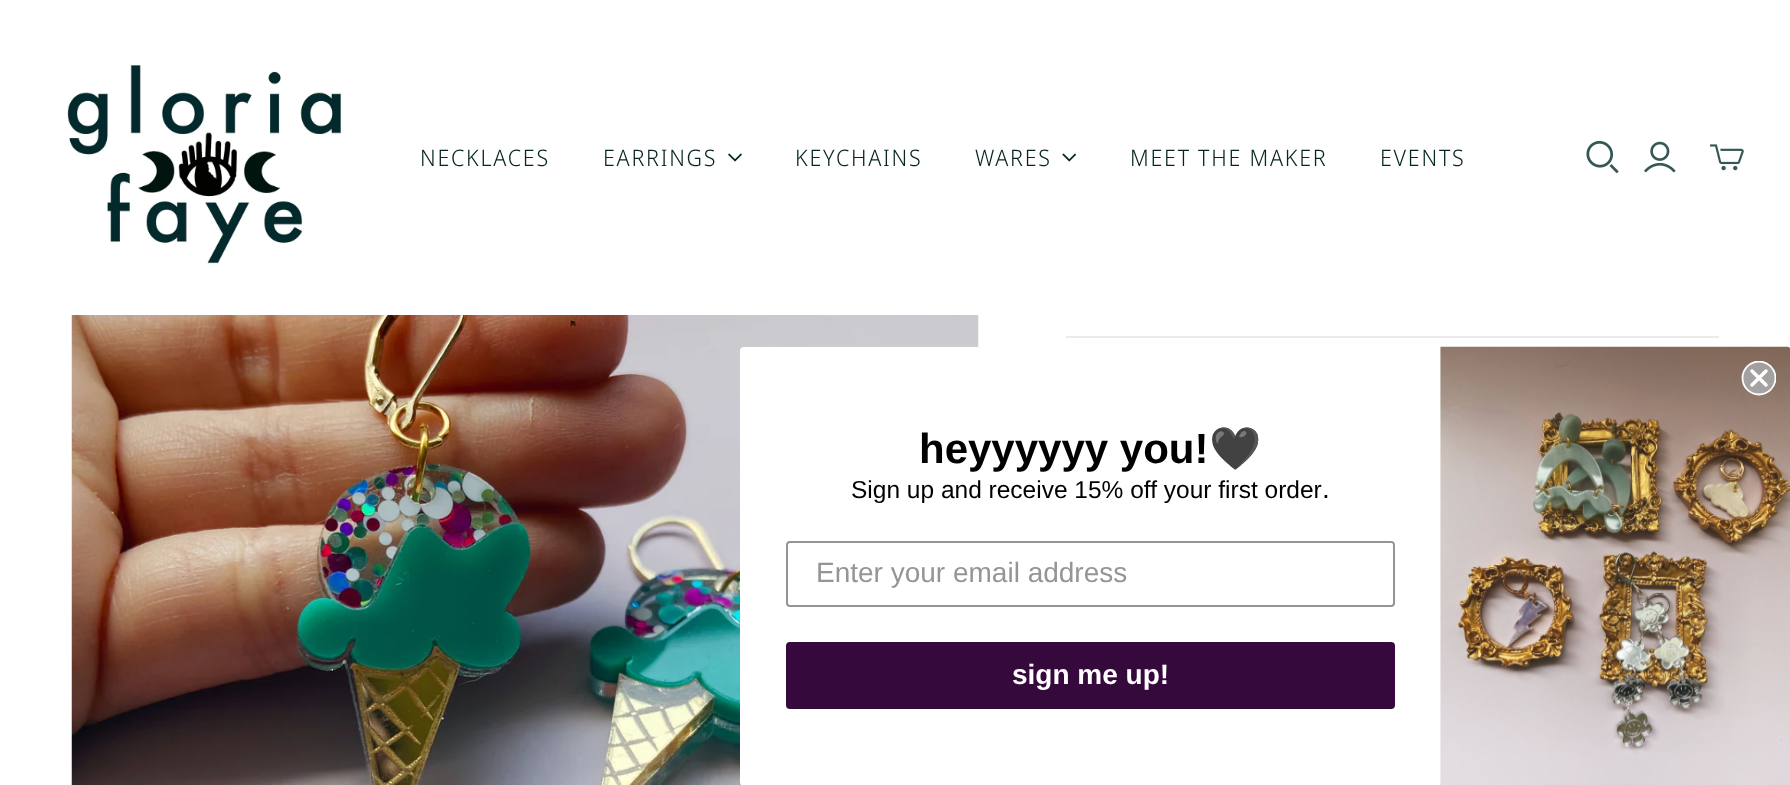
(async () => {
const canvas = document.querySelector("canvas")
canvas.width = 1790
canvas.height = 785
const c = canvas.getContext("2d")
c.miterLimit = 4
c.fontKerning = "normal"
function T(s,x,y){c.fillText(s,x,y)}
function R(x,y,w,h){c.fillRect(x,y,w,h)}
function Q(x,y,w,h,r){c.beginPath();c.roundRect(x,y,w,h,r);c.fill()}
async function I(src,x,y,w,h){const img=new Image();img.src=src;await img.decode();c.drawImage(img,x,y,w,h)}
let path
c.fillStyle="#fff"
R(0,0,1790,785)
await I("1.png",67,65,275,199)
c.letterSpacing="1.75px"
c.font="300 22.75px Noto Sans Display"
c.fillStyle="#052422"
T("NECKLACES",420,166)
T("EARRINGS",603,166)
await I("2.png",728,153,14,9)
T("KEYCHAINS",795,166)
T("WARES",975,166)
await I("3.png",1062,153,14,9)
T("MEET THE MAKER",1130,166)
T("EVENTS",1380,166)
await I("4.png",1586,140,33,34)
await I("5.png",1644,141,32,32)
await I("6.png",1710,144,34,27)
await I("7.png",71,315,908,470)
c.fillStyle="#ebebeb"
R(1066,336,653,2)
c.fillStyle="#fff"
Q(740,347,1050,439,4)
await I("8.png",1440,346,350,439)
c.fillStyle="#b4bbc3a6"
c.beginPath()
c.arc(1759,378,16.5,0,7)
c.fill()
c.save()
c.beginPath()
c.rect(1741,361,35,35)
c.clip()
c.beginPath()
c.arc(1759,378,16.5,0,7)
c.strokeStyle="#fff"
c.lineWidth=1.8
c.stroke()
c.restore()
path = new Path2D("M1752 371l14 14m-14 0l14-14z")
c.strokeStyle="#fff"
c.lineWidth=3.5
c.lineCap="round"
c.lineJoin="round"
c.stroke(path)
c.letterSpacing="0px"
c.font="bold 42px Liberation Sans"
c.fillStyle="#000"
T("heyyyyyy you!",919,463)
c.font="bold 42px Noto Color Emoji"
T("🖤",1209,463)
c.font="24.5px Liberation Sans"
T("Sign up and receive 15% off your first order",851,498)
c.font="28px Liberation Sans"
T(".",1322,498)
c.beginPath()
c.roundRect(787,542,607,64,3)
c.strokeStyle="#949596"
c.lineWidth=2
c.lineJoin="miter"
c.stroke()
c.fillStyle="#949596"
T("Enter your email address",816,582)
c.fillStyle="#36093d"
Q(786,642,609,67,4)
c.font="bold 28px Liberation Sans"
c.fillStyle="#fff"
T("sign me up!",1012,684)
})()
